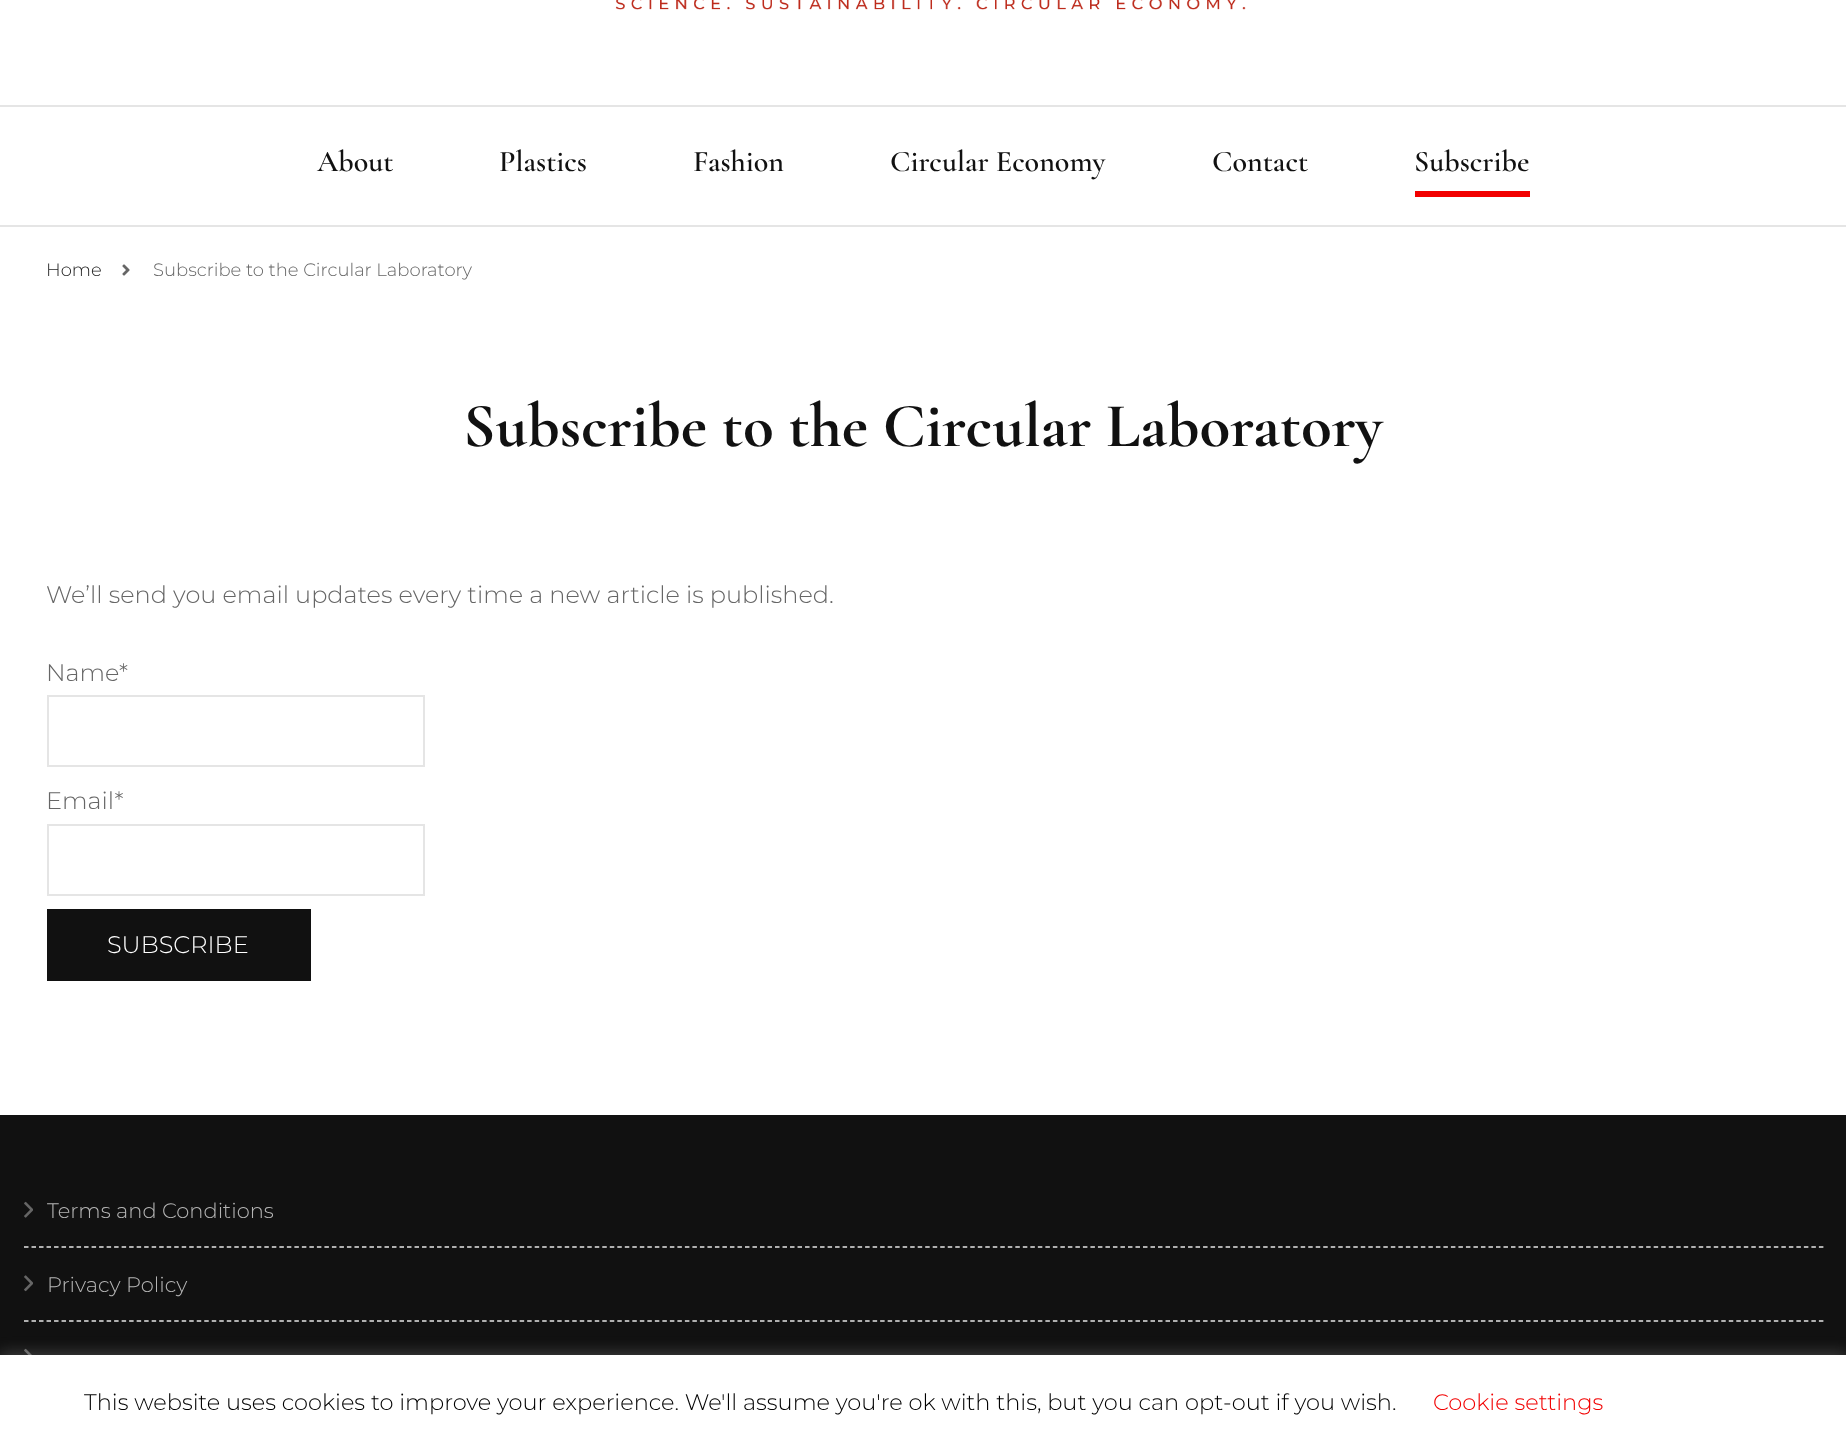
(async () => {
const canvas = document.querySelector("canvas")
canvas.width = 1846
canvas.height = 1452
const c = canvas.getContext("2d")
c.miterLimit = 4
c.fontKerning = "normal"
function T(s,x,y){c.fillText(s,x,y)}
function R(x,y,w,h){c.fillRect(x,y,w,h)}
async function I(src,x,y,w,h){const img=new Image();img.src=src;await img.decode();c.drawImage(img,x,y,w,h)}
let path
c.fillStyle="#fff"
R(0,0,1846,1452)
await I("1.png",615,0,631,10)
c.fillStyle="#e5e5e5"
R(0,105,1846,2)
R(0,225,1846,2)
c.font="600 30px Cormorant Garamond"
c.fillStyle="#111"
T("About",317,171)
T("Plastics",499,171)
T("Fashion",693,171)
T("Circular Economy",890,171)
T("Contact",1212,171)
T("Subscribe",1414,171)
c.fillStyle="#f20000"
R(1415,191,115,6)
c.font="300 18px Montserrat"
c.fillStyle="#222"
T("Home",46,276)
await I("2.png",122,264,8,12)
c.fillStyle="#666"
T("Subscribe to the Circular Laboratory",153,276)
c.font="bold 63px Cormorant Garamond"
c.fillStyle="#111"
T("Subscribe to the Circular Laboratory",463,446)
c.font="300 24px Montserrat"
c.fillStyle="#666"
T("We’ll send you email updates every time a new article is published.",46,603)
T("Name*",46,681)
c.strokeStyle="#e5e5e5"
c.lineWidth=2
c.strokeRect(48,696,376,70)
T("Email*",46,809)
c.strokeRect(48,825,376,70)
c.fillStyle="#111"
R(47,909,264,72)
c.fillStyle="#fff"
T("SUBSCRIBE",107,953)
c.fillStyle="#111"
R(0,1115,1846,240)
path = new Path2D("M24 1247h1800")
c.lineWidth=1.5
c.setLineDash([4.5,3.01])
c.stroke(path)
await I("3.png",24,1201,9,17)
c.font="300 21px Montserrat"
c.fillStyle="#b5b5b5"
T("Terms and Conditions",47,1218)
path = new Path2D("M24 1321h1800")
c.stroke(path)
await I("4.png",24,1275,9,17)
T("Privacy Policy",47,1292)
await I("5.png",24,1348,8,7)
c.fillStyle="#acabab4d"
c.filter="blur(7.5px)"
c.beginPath()
c.rect(0,1353,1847,98)
c.fill()
c.filter="none"
c.fillStyle="#fff"
R(0,1355,1846,97)
c.font="300 22.5px Montserrat"
c.fillStyle="#000"
T("This website uses cookies to improve your experience. We'll assume you're ok with this, but you can opt-out if you wish.",84,1410)
c.fillStyle="#f20000"
T("Cookie settings",1433,1410)
})()
